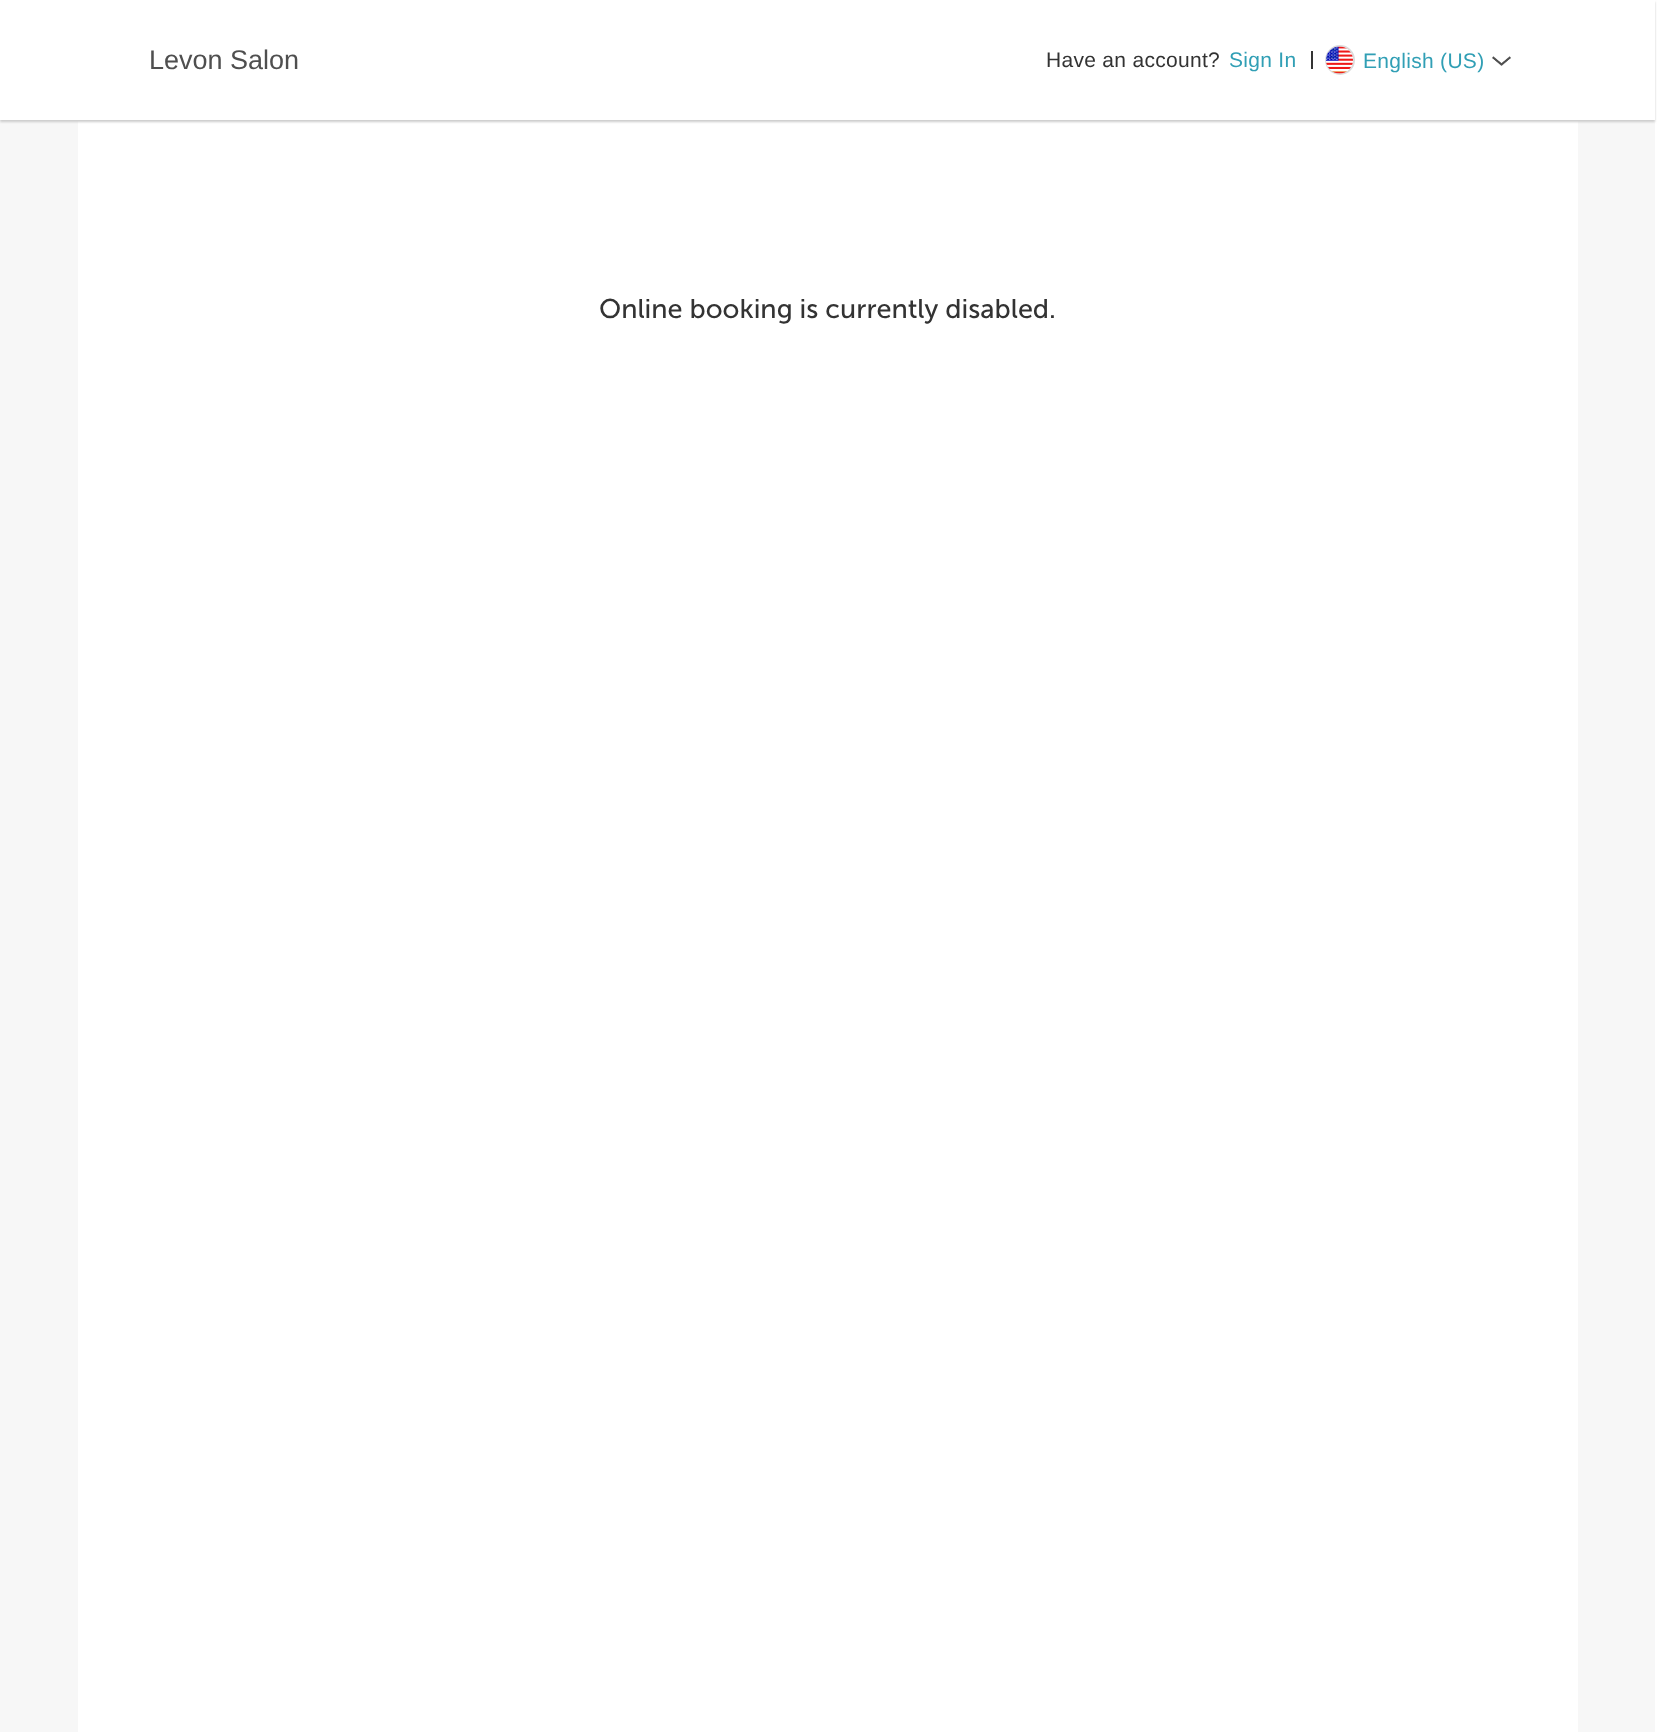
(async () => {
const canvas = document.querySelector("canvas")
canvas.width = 1676
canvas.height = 1732
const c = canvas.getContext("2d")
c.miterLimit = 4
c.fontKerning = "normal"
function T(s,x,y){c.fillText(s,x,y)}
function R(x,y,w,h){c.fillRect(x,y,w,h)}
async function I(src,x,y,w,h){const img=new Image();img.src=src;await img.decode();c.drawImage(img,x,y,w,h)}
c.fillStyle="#fff"
R(0,0,1676,1732)
c.fillStyle="#f7f7f7"
R(0,120,1655,1612)
c.fillStyle="#fff"
R(78,120,1500,1612)
c.fillStyle="#ccc"
c.filter="blur(1px)"
c.beginPath()
c.rect(0,2,1655,120)
c.fill()
c.filter="none"
c.fillStyle="#fff"
R(0,0,1655,120)
c.font="27px Liberation Sans"
c.fillStyle="#4f4f4f"
T("Levon Salon",149,69)
c.letterSpacing="0.3px"
c.font="21px Liberation Sans"
c.fillStyle="#333"
T("Have an account?",1046,67)
c.fillStyle="#319fb5"
T("Sign In",1229,67)
c.fillStyle="#333"
R(1311,51,2,18)
c.beginPath()
c.arc(1340,60,14,0,7)
c.strokeStyle="#dcdcdc"
c.lineWidth=2
c.stroke()
await I("1.png",1326,46,27,28)
c.fillStyle="#319fb5"
T("English (US)",1363,68)
await I("2.png",1492,56,19,10)
c.letterSpacing="0px"
c.font="27px 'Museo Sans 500'"
c.fillStyle="#333"
T("Online booking is currently disabled.",599,318)
})()
